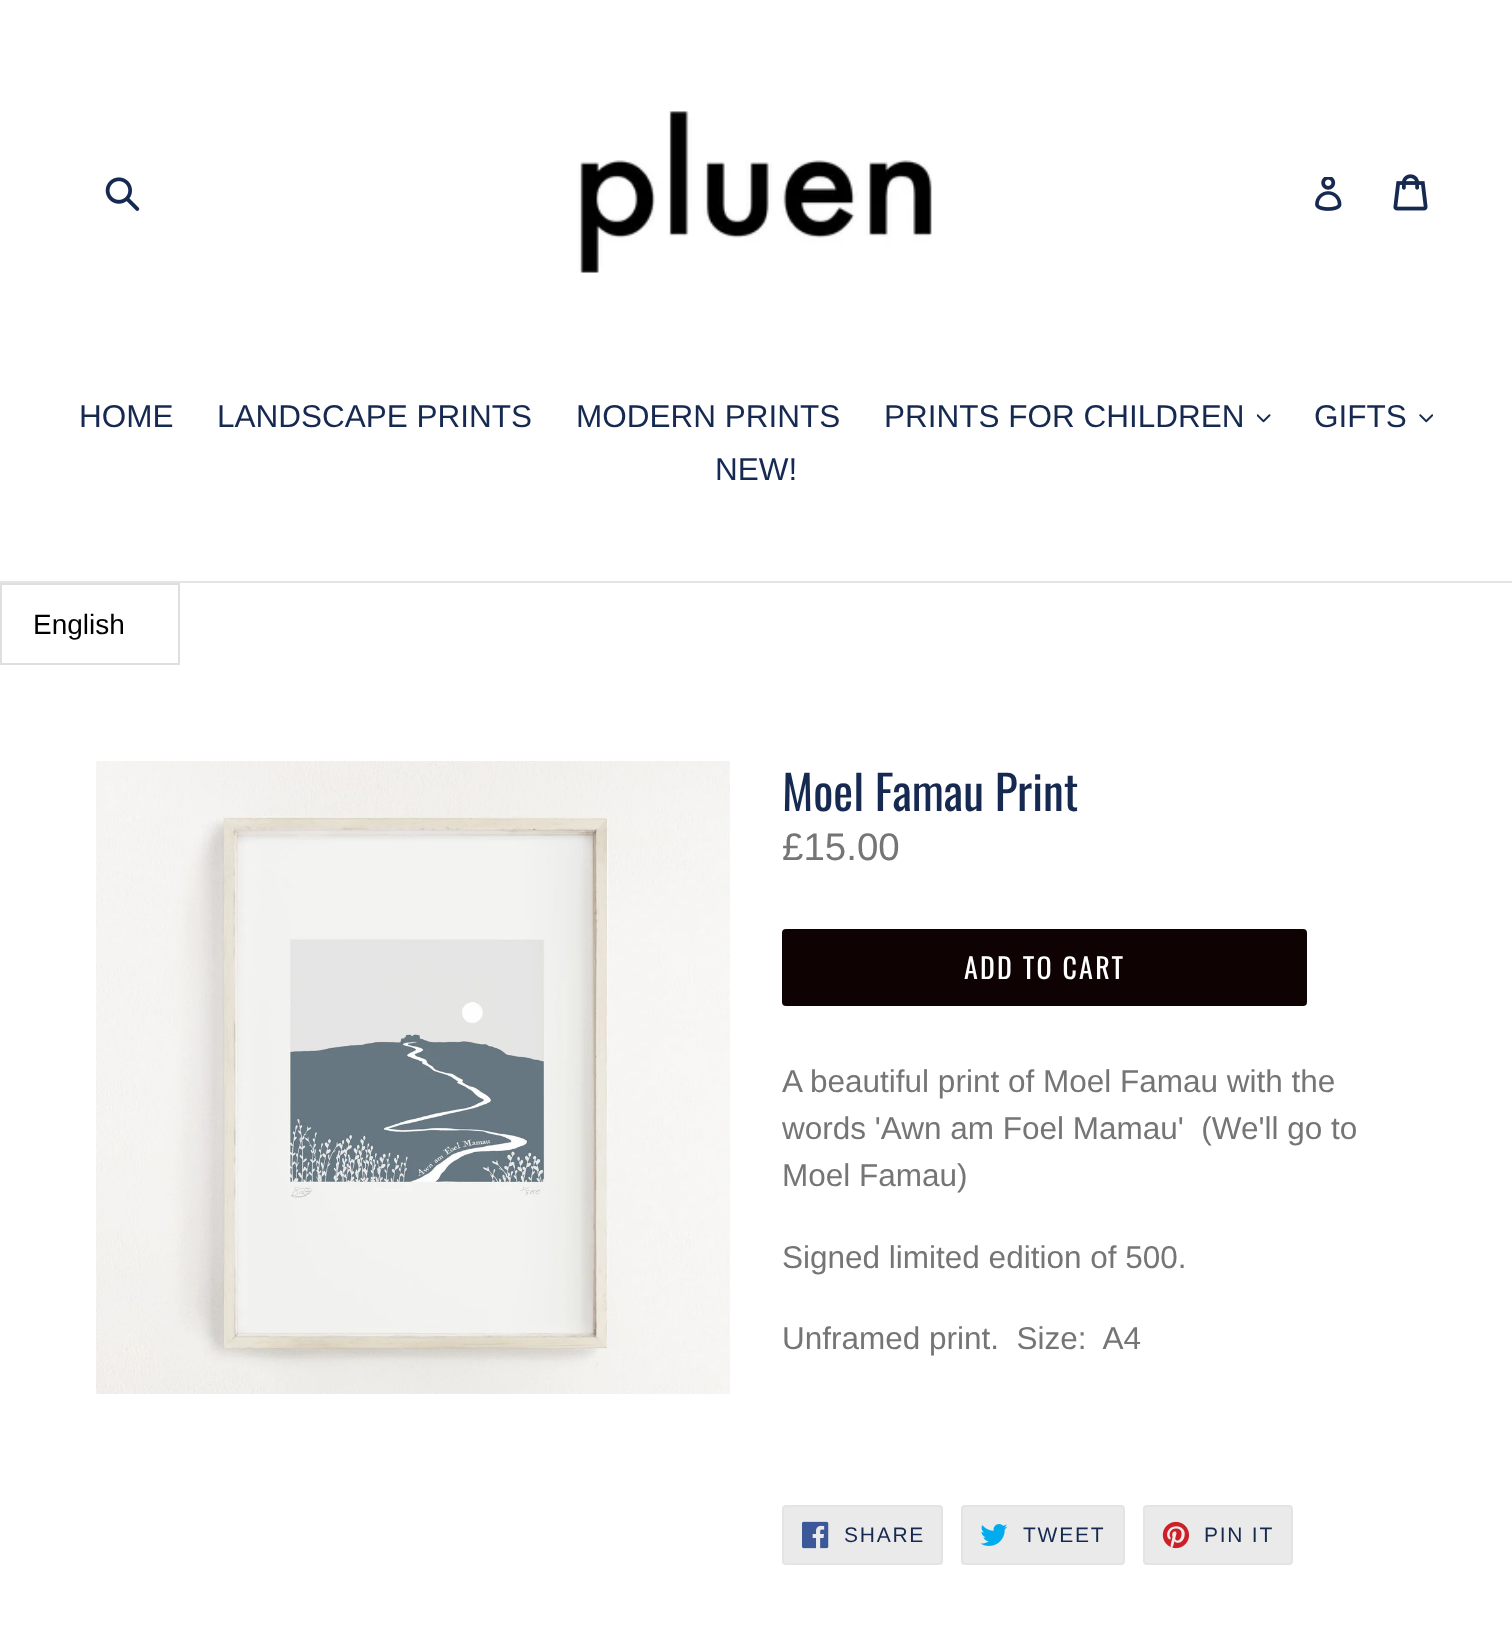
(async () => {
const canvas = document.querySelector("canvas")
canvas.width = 1512
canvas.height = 1649
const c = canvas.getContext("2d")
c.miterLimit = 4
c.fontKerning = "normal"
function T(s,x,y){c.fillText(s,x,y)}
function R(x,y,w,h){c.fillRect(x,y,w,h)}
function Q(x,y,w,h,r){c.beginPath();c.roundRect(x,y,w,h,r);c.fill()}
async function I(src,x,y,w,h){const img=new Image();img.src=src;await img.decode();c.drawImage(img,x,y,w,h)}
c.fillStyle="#fff"
R(0,0,1512,1649)
await I("1.png",105,177,35,34)
await I("2.png",578,111,354,162)
await I("3.png",1315,177,27,34)
await I("4.png",1393,174,35,37)
c.fillStyle="#e4e4e4"
R(0,581,1512,2)
c.font="31.5px Liberation Sans"
c.fillStyle="#162950"
T("HOME",79,427)
T("LANDSCAPE PRINTS",217,427)
T("MODERN PRINTS",576,427)
T("PRINTS FOR CHILDREN",884,427)
await I("5.png",1257,414,14,9)
T("GIFTS",1314,427)
await I("6.png",1419,414,14,9)
T("NEW!",715,480)
c.strokeStyle="#dfdfdf"
c.lineWidth=2
c.strokeRect(1,584,178,80)
c.font="28px Liberation Sans"
c.fillStyle="#000"
T("English",33,634)
await I("7.png",96,761,634,633)
c.font="47.25px Oswald"
c.fillStyle="#162950"
T("Moel Famau Print",782,811)
c.font="38.5px Liberation Sans"
c.fillStyle="#757575"
T("£15.00",782,860)
c.fillStyle="#0f0202"
Q(782,929,525,77,4)
c.letterSpacing="2.25px"
c.font="28px Oswald"
c.fillStyle="#fff"
T("ADD TO CART",964,979)
c.letterSpacing="0px"
c.font="31.5px Liberation Sans"
c.fillStyle="#757575"
T("A beautiful print of Moel Famau with the",782,1092)
T("words 'Awn am Foel Mamau'  (We'll go to",782,1139)
T("Moel Famau)",782,1186)
T("Signed limited edition of 500.",782,1268)
T("Unframed print.  Size:  A4",782,1349)
c.fillStyle="#eaeaea"
c.beginPath()
c.roundRect(783,1506,159,58,3)
c.fill()
c.strokeStyle="#e4e4e4"
c.stroke()
await I("8.png",802,1521,27,28)
c.letterSpacing="1.75px"
c.font="21px Liberation Sans"
c.fillStyle="#162950"
T("SHARE",844,1542)
c.fillStyle="#eaeaea"
c.beginPath()
c.roundRect(962,1506,162,58,3)
c.fill()
c.stroke()
await I("9.png",980,1524,28,22)
c.fillStyle="#162950"
T("TWEET",1023,1542)
c.fillStyle="#eaeaea"
c.beginPath()
c.roundRect(1144,1506,148,58,3)
c.fill()
c.stroke()
await I("10.png",1162,1521,28,28)
c.fillStyle="#162950"
T("PIN IT",1204,1542)
})()
